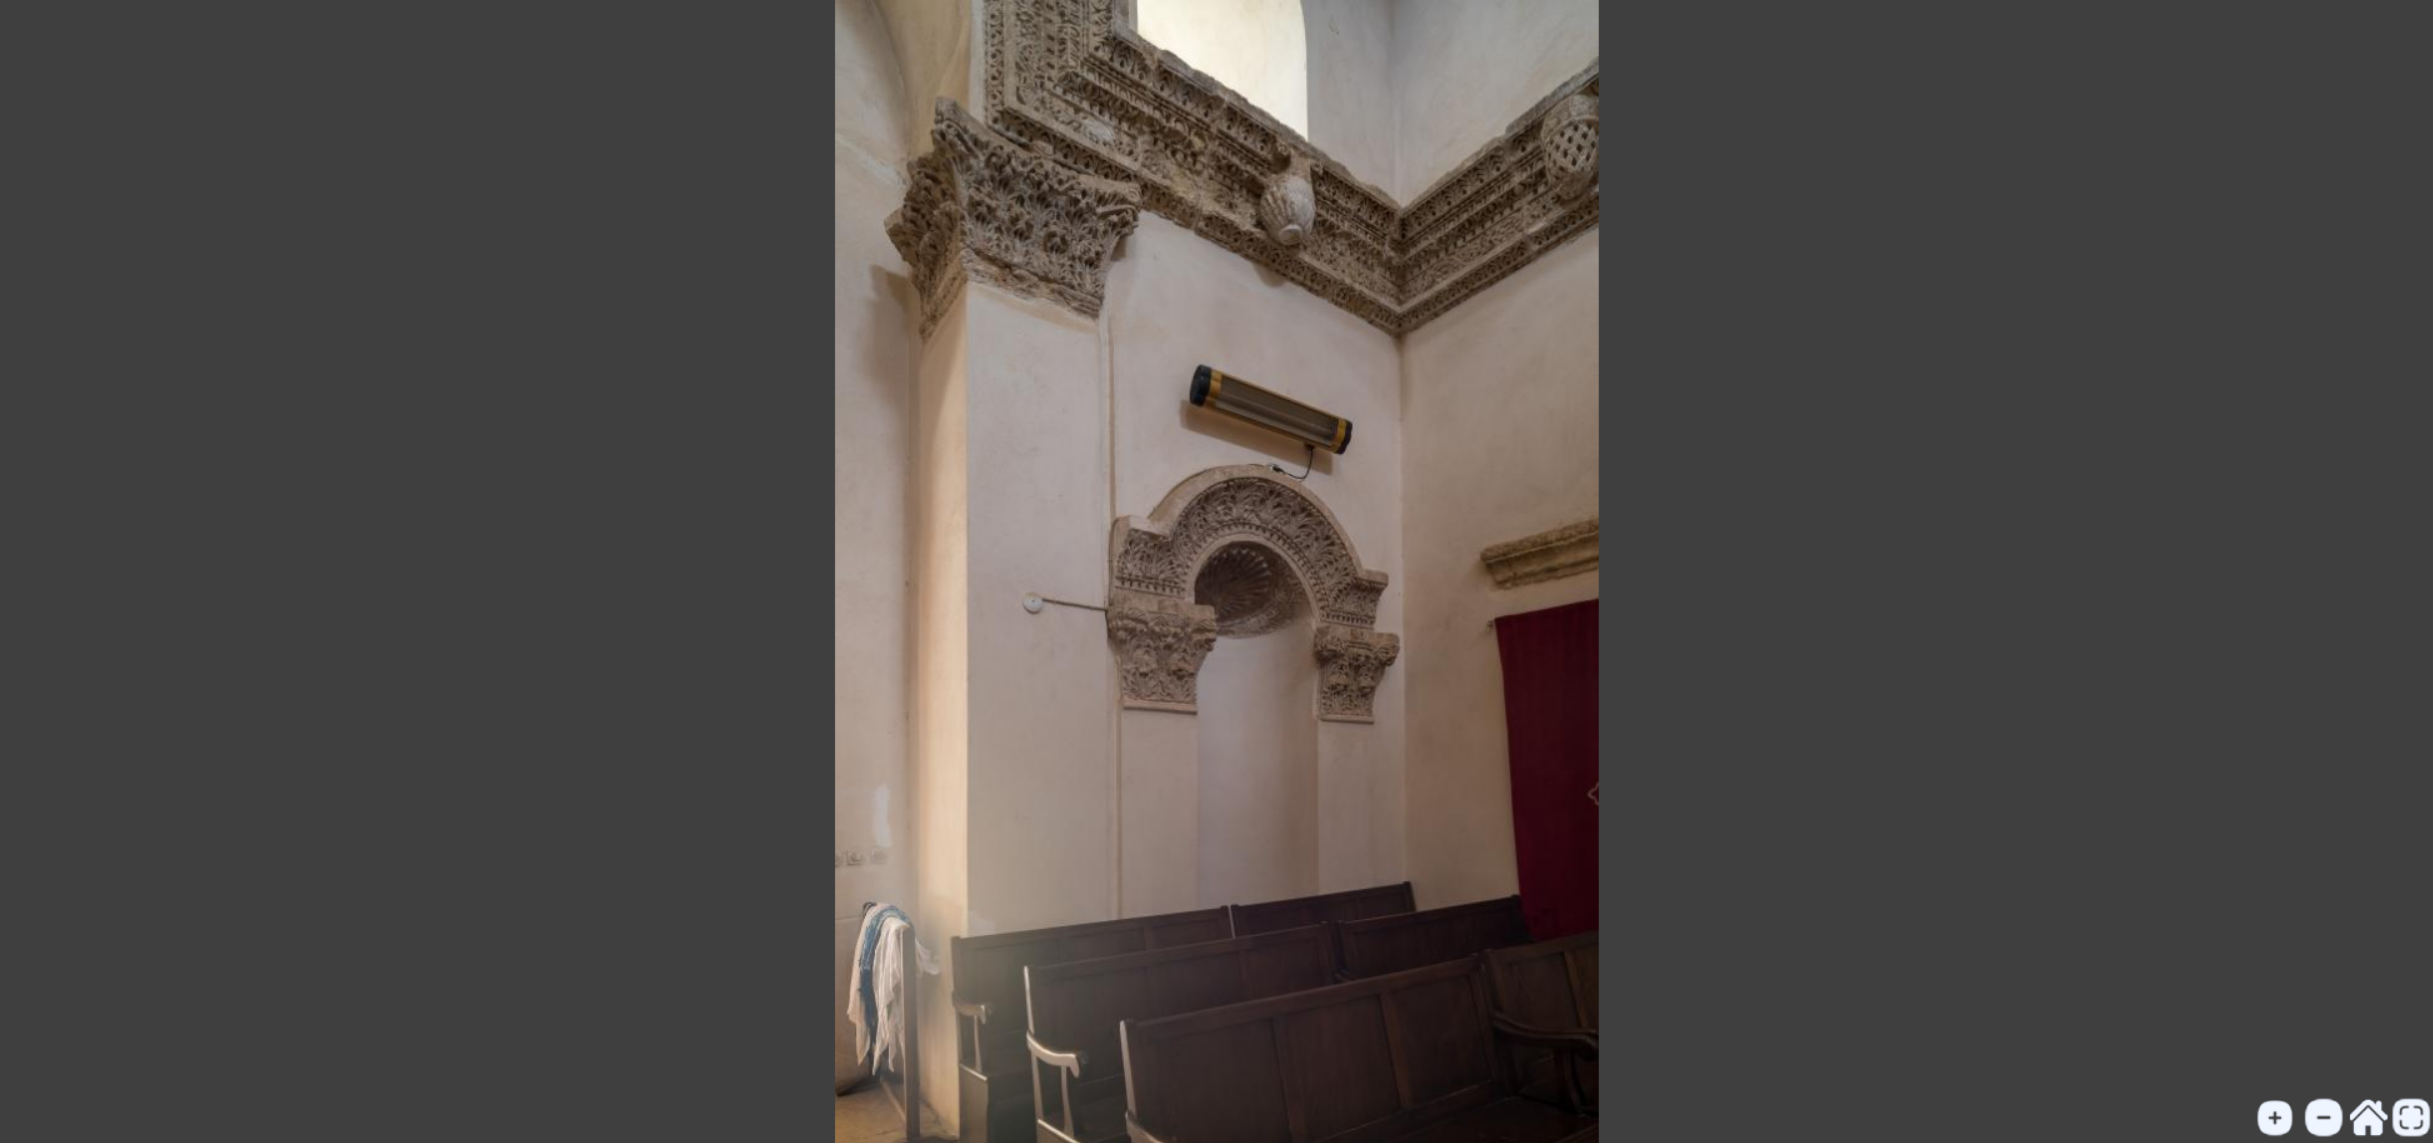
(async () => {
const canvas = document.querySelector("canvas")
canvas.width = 2433
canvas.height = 1143
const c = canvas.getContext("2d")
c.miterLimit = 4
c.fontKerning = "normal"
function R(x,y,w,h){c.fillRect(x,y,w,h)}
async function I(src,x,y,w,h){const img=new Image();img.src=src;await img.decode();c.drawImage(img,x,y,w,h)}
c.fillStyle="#3f3f3f"
R(0,0,2433,1143)
await I("1.png",834,0,765,1143)
await I("2.png",2257,1100,36,37)
await I("3.png",2257,1100,36,37)
await I("4.png",2304,1097,40,41)
await I("5.png",2304,1098,39,39)
await I("6.png",2349,1098,39,39)
await I("7.png",2349,1099,39,38)
await I("8.png",2391,1097,40,41)
await I("9.png",2392,1098,39,39)
})()
